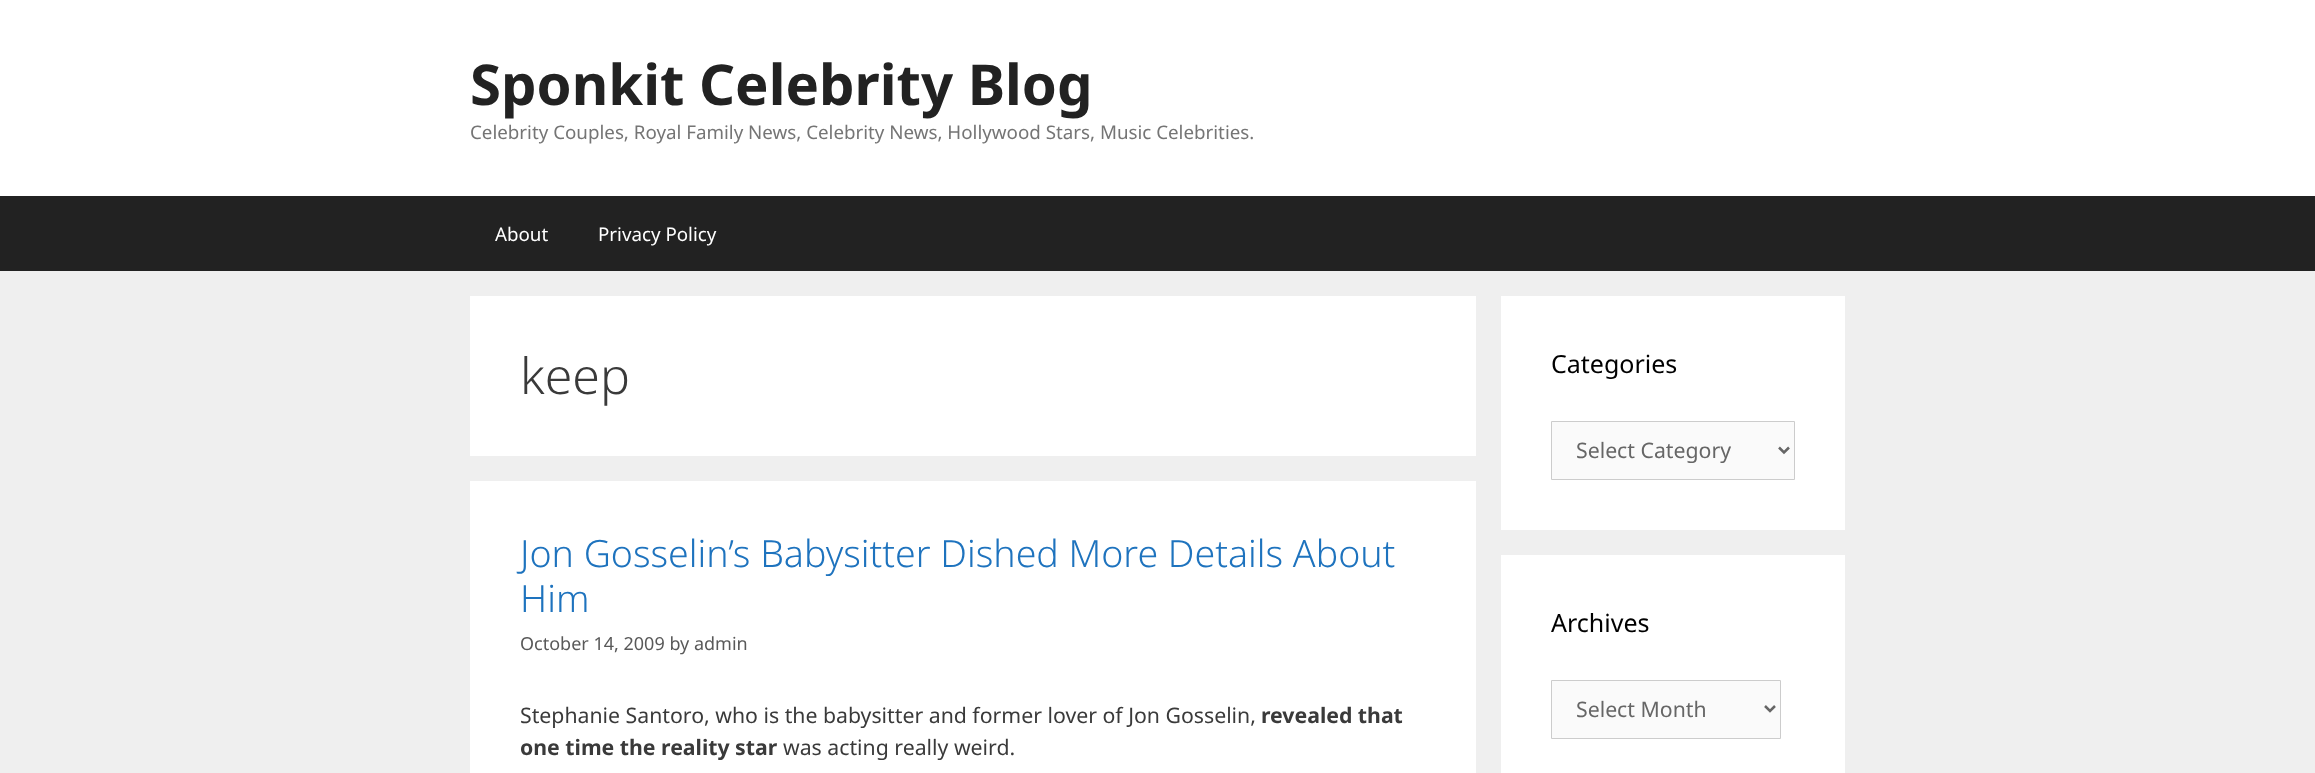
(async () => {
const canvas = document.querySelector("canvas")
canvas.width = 2315
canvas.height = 773
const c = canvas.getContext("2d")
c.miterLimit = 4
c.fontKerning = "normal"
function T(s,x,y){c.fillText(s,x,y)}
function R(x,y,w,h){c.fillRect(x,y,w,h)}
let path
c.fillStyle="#efefef"
R(0,0,2315,773)
c.fillStyle="#fff"
R(0,0,2315,196)
c.font="bold 56.25px Noto Sans"
c.fillStyle="#222"
T("Sponkit Celebrity Blog",470,105)
c.font="18.75px Noto Sans"
c.fillStyle="#757575"
T("Celebrity Couples, Royal Family News, Celebrity News, Hollywood Stars, Music Celebrities.",470,139)
c.fillStyle="#222"
R(0,196,2315,75)
c.fillStyle="#fff"
T("About",495,241)
T("Privacy Policy",598,241)
R(470,296,1006,160)
c.font="300 50px Noto Sans"
c.fillStyle="#3a3a3a"
T("keep",520,394)
c.fillStyle="#fff"
R(470,481,1006,292)
c.font="300 37.5px Noto Sans"
c.fillStyle="#1e73be"
T("Jon Gosselin’s Babysitter Dished More Details About",520,567)
T("Him",520,612)
c.font="18px Noto Sans"
c.fillStyle="#595959"
T("October 14, 2009 by admin",520,650)
c.font="21.25px Noto Sans"
c.fillStyle="#3a3a3a"
T("Stephanie Santoro, who is the babysitter and former lover of Jon Gosselin,",520,723)
c.font="bold 21.25px Noto Sans"
T("revealed that",1261,723)
T("one time the reality star",520,755)
c.font="21.25px Noto Sans"
T("was acting really weird.",783,755)
c.fillStyle="#fff"
R(1501,296,344,234)
c.font="25px Noto Sans"
c.fillStyle="#000"
T("Categories",1551,373)
c.fillStyle="#fafafa"
c.beginPath()
c.rect(1551.5,421.5,243,58)
c.fill()
c.strokeStyle="#ccc"
c.stroke()
path = new Path2D("M1779 447.5l5 5l5-5")
c.strokeStyle="#666"
c.lineWidth=2.5
c.stroke(path)
c.font="21.25px Noto Sans"
c.fillStyle="#666"
T("Select Category",1576,458)
c.fillStyle="#fff"
R(1501,555,344,218)
c.font="25px Noto Sans"
c.fillStyle="#000"
T("Archives",1551,632)
c.fillStyle="#fafafa"
c.beginPath()
c.rect(1551.5,680.5,229,58)
c.fill()
c.strokeStyle="#ccc"
c.lineWidth=1
c.stroke()
path = new Path2D("M1765 706l5 5l5-5")
c.strokeStyle="#666"
c.lineWidth=2.5
c.stroke(path)
c.font="21.25px Noto Sans"
c.fillStyle="#666"
T("Select Month",1576,717)
})()
